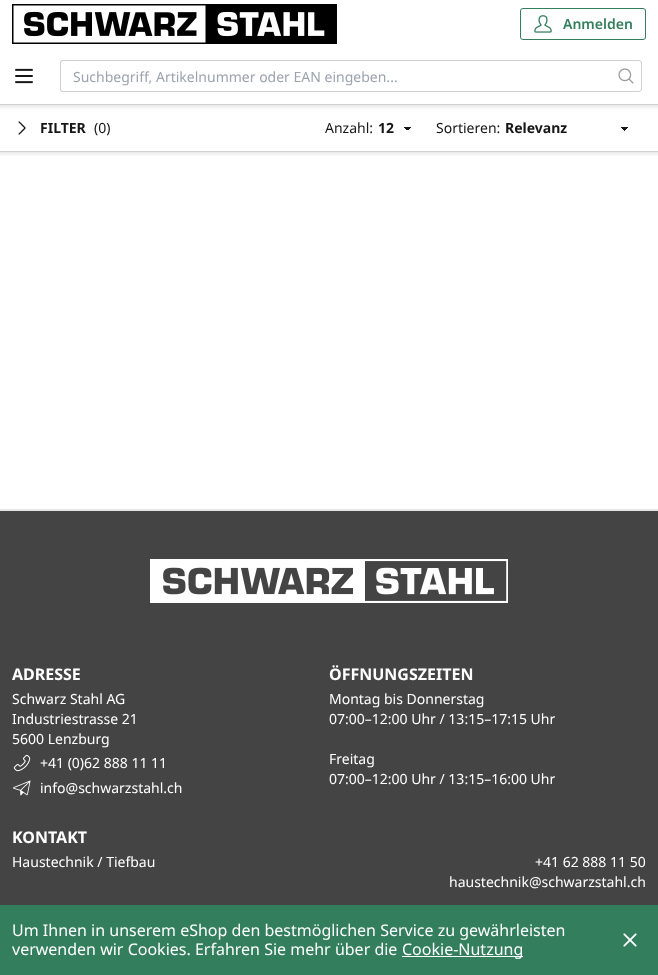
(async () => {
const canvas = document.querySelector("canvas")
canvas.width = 658
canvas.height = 975
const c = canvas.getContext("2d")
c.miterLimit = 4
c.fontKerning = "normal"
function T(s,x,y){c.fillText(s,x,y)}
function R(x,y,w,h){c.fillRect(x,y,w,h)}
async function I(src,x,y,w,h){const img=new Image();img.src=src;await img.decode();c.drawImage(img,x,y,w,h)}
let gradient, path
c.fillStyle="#444"
R(0,0,658,975)
c.fillStyle="#fff"
R(0,0,658,509)
await I("1.png",12,4,325,40)
c.beginPath()
c.roundRect(520.5,8.5,125,31,2.5)
c.strokeStyle="#337e5d"
c.stroke()
await I("2.png",534,15,18,18)
c.font="600 14px Noto Sans"
c.fillStyle="#337e5d"
T("Anmelden",563,29)
await I("3.png",15,68,18,16)
c.fillStyle="#d0d0d0"
path = new Path2D("M63 60h550v32h-550c-2 0-3-1-3-3v-26c0-2 1-3 3-3zm0 1h550v30h-550c-1 0-2-1-2-2v-26c0-1 1-2 2-2z")
c.fill(path,"evenodd")
c.font="14px Noto Sans"
c.fillStyle="#9ca3af"
T("Suchbegriff, Artikelnummer oder EAN eingeben...",73,82)
c.fillStyle="#fff"
c.beginPath()
c.roundRect(612,60,30,32,[0,3,3,0])
c.fill()
c.fillStyle="#d0d0d0"
path = new Path2D("M612 60h27c1.5 0 3 1.5 3 3v26c0 1.5-1.5 3-3 3h-27zm0 1h27c1 0 2 1 2 2v26c0 1-1 2-2 2h-27z")
c.fill(path,"evenodd")
await I("4.png",618,68,16,16)
c.fillStyle="#e5e5e5"
R(0,104,658,1)
gradient = c.createLinearGradient(329,104,329,110)
gradient.addColorStop(0,"#0000001a")
gradient.addColorStop(1,"#00000000")
c.fillStyle = gradient
R(0,104,658,5)
c.fillStyle="#e5e5e5"
R(0,151,658,1)
await I("5.png",18,121,8,14)
c.font="bold 14px Noto Sans"
c.fillStyle="#161616"
T("FILTER",40,133)
c.font="14px Noto Sans"
T("(0)",94,133)
T("Anzahl:",325,133)
gradient = c.createLinearGradient(407,127,411,131)
gradient.addColorStop(.5,"#161616")
gradient.addColorStop(.5,"#fff")
c.fillStyle = gradient
R(407,127,4,3)
gradient = c.createLinearGradient(403,131,407,127)
gradient.addColorStop(.5,"#fff")
gradient.addColorStop(.5,"#161616")
c.fillStyle = gradient
R(403,127,4,4)
c.font="bold 14px Noto Sans"
c.fillStyle="#161616"
T("12",378,133)
c.font="14px Noto Sans"
T("Sortieren:",436,133)
gradient = c.createLinearGradient(625,127,629,131)
gradient.addColorStop(.5,"#161616")
gradient.addColorStop(.5,"#fff")
c.fillStyle = gradient
R(625,127,4,3)
gradient = c.createLinearGradient(621,131,625,127)
gradient.addColorStop(.5,"#fff")
gradient.addColorStop(.5,"#161616")
c.fillStyle = gradient
R(621,127,4,4)
c.font="bold 14px Noto Sans"
c.fillStyle="#161616"
T("Relevanz",505,133)
gradient = c.createLinearGradient(329,151,329,157)
gradient.addColorStop(0,"#0000001a")
gradient.addColorStop(1,"#00000000")
c.fillStyle = gradient
R(0,151,658,5)
c.fillStyle="#e5e5e5"
R(0,509,658,1)
c.fillStyle="#e5e7eb"
R(0,510,658,1)
await I("6.png",150,559,358,44)
c.font="bold 16px Noto Sans"
c.fillStyle="#fff"
T("ADRESSE",12,680)
c.font="14px Noto Sans"
T("Schwarz Stahl AG",12,704)
T("Industriestrasse 21",12,724)
T("5600 Lenzburg",12,744)
await I("7.png",13,754,18,18)
T("+41 (0)62 888 11 11",40,768)
await I("8.png",13,780,18,16)
T("info@schwarzstahl.ch",40,793)
c.font="bold 16px Noto Sans"
T("ÖFFNUNGSZEITEN",329,680)
c.font="14px Noto Sans"
T("Montag bis Donnerstag",329,704)
T("07:00–12:00 Uhr / 13:15–17:15 Uhr",329,724)
T("Freitag",329,764)
T("07:00–12:00 Uhr / 13:15–16:00 Uhr",329,784)
c.font="bold 16px Noto Sans"
T("KONTAKT",12,843)
c.font="14px Noto Sans"
T("Haustechnik / Tiefbau",12,867)
T("+41 62 888 11 50",535,867)
T("haustechnik@schwarzstahl.ch",449,887)
c.fillStyle="#337e5d"
R(0,905,658,70)
c.font="16px Noto Sans"
c.fillStyle="#fff"
T("Um Ihnen in unserem eShop den bestmöglichen Service zu gewährleisten",12,936)
T("verwenden wir Cookies. Erfahren Sie mehr über die",12,955)
R(402,956,121,1)
T("Cookie-Nutzung",402,955)
await I("9.png",623,933,14,14)
})()
